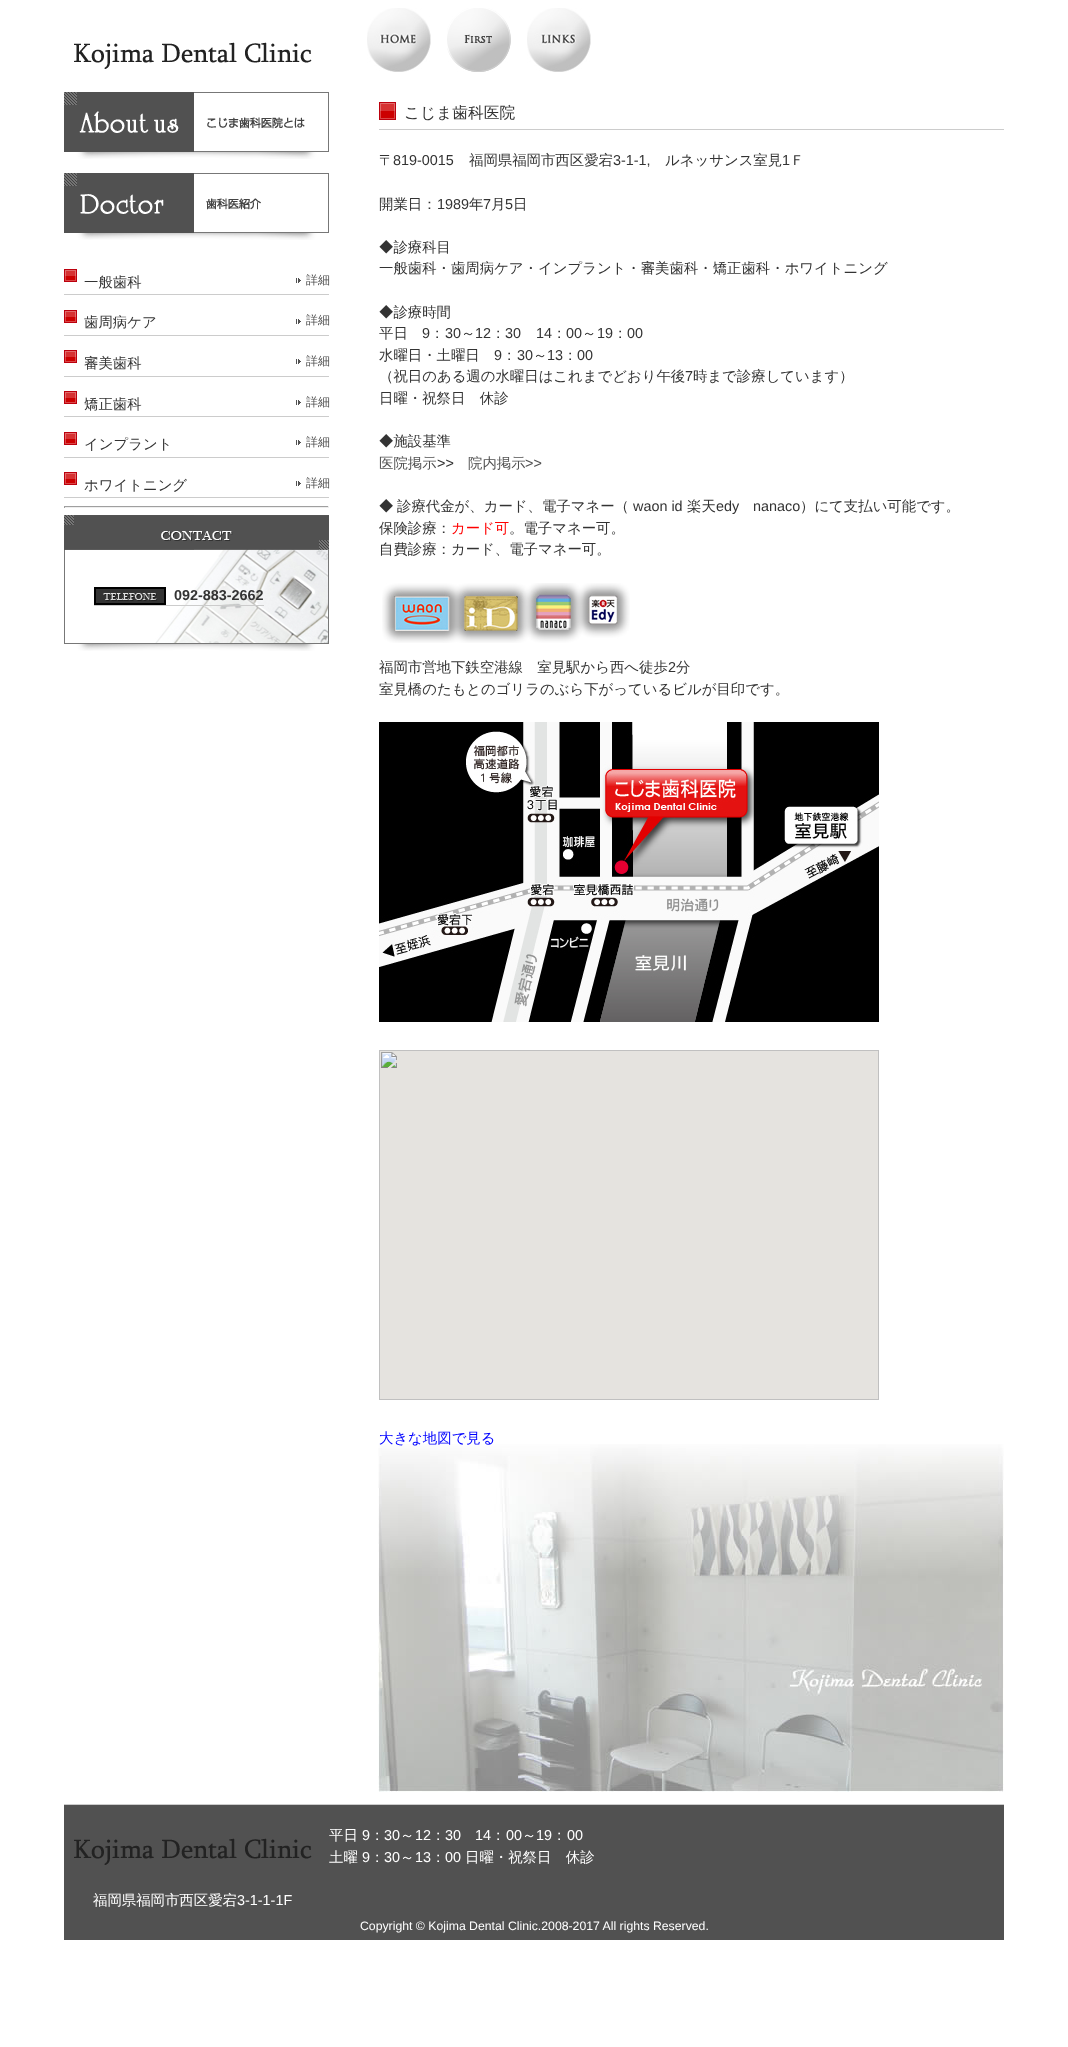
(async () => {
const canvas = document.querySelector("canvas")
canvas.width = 1068
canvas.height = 2047
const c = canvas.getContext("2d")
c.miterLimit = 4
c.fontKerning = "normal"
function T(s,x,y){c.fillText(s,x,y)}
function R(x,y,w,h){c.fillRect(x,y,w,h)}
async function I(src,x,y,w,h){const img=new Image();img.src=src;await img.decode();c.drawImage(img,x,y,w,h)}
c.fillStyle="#fff"
R(0,0,1068,2047)
await I("1.png",74,42,238,27)
await I("2.png",367,8,64,64)
await I("3.png",447,8,64,64)
await I("4.png",527,8,64,64)
await I("5.png",378,1444,626,348)
await I("6.png",64,92,265,67)
await I("7.png",64,173,265,67)
await I("8.png",64,269,13,13)
c.fillStyle="#ccc"
R(64,294,265,1)
c.font="500 14.4px WenQuanYi Zen Hei"
c.fillStyle="#333"
T("一般歯科",84,287)
await I("9.png",296,278,5,5)
c.font="500 12px WenQuanYi Zen Hei"
c.fillStyle="#515151"
T("詳細",306,284)
await I("8.png",64,310,13,13)
c.fillStyle="#ccc"
R(64,335,265,1)
c.font="500 14.4px WenQuanYi Zen Hei"
c.fillStyle="#333"
T("歯周病ケア",84,327)
await I("9.png",296,319,5,5)
c.font="500 12px WenQuanYi Zen Hei"
c.fillStyle="#515151"
T("詳細",306,324)
await I("8.png",64,350,13,13)
c.fillStyle="#ccc"
R(64,376,265,1)
c.font="500 14.4px WenQuanYi Zen Hei"
c.fillStyle="#333"
T("審美歯科",84,368)
await I("9.png",296,359,5,5)
c.font="500 12px WenQuanYi Zen Hei"
c.fillStyle="#515151"
T("詳細",306,365)
await I("8.png",64,391,13,13)
c.fillStyle="#ccc"
R(64,416,265,1)
c.font="500 14.4px WenQuanYi Zen Hei"
c.fillStyle="#333"
T("矯正歯科",84,409)
await I("9.png",296,400,5,5)
c.font="500 12px WenQuanYi Zen Hei"
c.fillStyle="#515151"
T("詳細",306,406)
await I("8.png",64,432,13,13)
c.fillStyle="#ccc"
R(64,457,265,1)
c.font="500 14.4px WenQuanYi Zen Hei"
c.fillStyle="#333"
T("インプラント",84,449)
await I("9.png",296,440,5,5)
c.font="500 12px WenQuanYi Zen Hei"
c.fillStyle="#515151"
T("詳細",306,446)
await I("8.png",64,472,13,13)
c.fillStyle="#ccc"
R(64,497,265,1)
c.font="500 14.4px WenQuanYi Zen Hei"
c.fillStyle="#333"
T("ホワイトニング",84,490)
await I("9.png",296,481,5,5)
c.font="500 12px WenQuanYi Zen Hei"
c.fillStyle="#515151"
T("詳細",306,487)
c.fillStyle="#9f9f9f"
R(64,506,265,1)
c.fillStyle="#eee"
R(328,506,1,2)
R(64,507,265,1)
c.fillStyle="#9f9f9f"
R(64,506,1,2)
await I("10.png",64,515,265,136)
await I("11.png",94,587,72,18)
c.font="bold 14.4px Liberation Sans"
c.fillStyle="#333"
T("092-883-2662",174,600)
c.fillStyle="#ccc"
R(94,605,170,1)
await I("12.png",379,102,17,18)
R(379,129,625,1)
c.font="500 15.75px WenQuanYi Zen Hei"
c.fillStyle="#333"
T("こじま歯科医院",404,118)
c.font="500 14.4px WenQuanYi Zen Hei"
T("〒",379,165)
c.font="14.4px Liberation Sans"
T("819-0015",393,165)
c.font="500 14.4px WenQuanYi Zen Hei"
T("福岡県福岡市西区愛宕",469,165)
c.font="14.4px Liberation Sans"
T("3-1-1,",613,165)
c.font="500 14.4px WenQuanYi Zen Hei"
T("ルネッサンス室見",665,165)
c.font="14.4px Liberation Sans"
T("1",782,165)
c.font="500 14.4px WenQuanYi Zen Hei"
T("Ｆ",790,165)
T("開業日：",379,209)
c.font="14.4px Liberation Sans"
T("1989",437,209)
c.font="500 14.4px WenQuanYi Zen Hei"
T("年",469,209)
c.font="14.4px Liberation Sans"
T("7",483,209)
c.font="500 14.4px WenQuanYi Zen Hei"
T("月",491,209)
c.font="14.4px Liberation Sans"
T("5",505,209)
c.font="500 14.4px WenQuanYi Zen Hei"
T("日",513,209)
T("◆診療科目",379,252)
T("一般歯科・歯周病ケア・インプラント・審美歯科・矯正歯科・ホワイトニング",379,273)
T("◆診療時間",379,317)
T("平日",379,338)
c.font="14.4px Liberation Sans"
T("9",422,338)
c.font="500 14.4px WenQuanYi Zen Hei"
T("：",430,338)
c.font="14.4px Liberation Sans"
T("30",445,338)
c.font="500 14.4px WenQuanYi Zen Hei"
T("～",461,338)
c.font="14.4px Liberation Sans"
T("12",475,338)
c.font="500 14.4px WenQuanYi Zen Hei"
T("：",491,338)
c.font="14.4px Liberation Sans"
T("30",505,338)
T("14",536,338)
c.font="500 14.4px WenQuanYi Zen Hei"
T("：",552,338)
c.font="14.4px Liberation Sans"
T("00",566,338)
c.font="500 14.4px WenQuanYi Zen Hei"
T("～",582,338)
c.font="14.4px Liberation Sans"
T("19",597,338)
c.font="500 14.4px WenQuanYi Zen Hei"
T("：",613,338)
c.font="14.4px Liberation Sans"
T("00",627,338)
c.font="500 14.4px WenQuanYi Zen Hei"
T("水曜日・土曜日",379,360)
c.font="14.4px Liberation Sans"
T("9",494,360)
c.font="500 14.4px WenQuanYi Zen Hei"
T("：",502,360)
c.font="14.4px Liberation Sans"
T("30",517,360)
c.font="500 14.4px WenQuanYi Zen Hei"
T("～",533,360)
c.font="14.4px Liberation Sans"
T("13",547,360)
c.font="500 14.4px WenQuanYi Zen Hei"
T("：",563,360)
c.font="14.4px Liberation Sans"
T("00",577,360)
c.font="500 14.4px WenQuanYi Zen Hei"
T("（祝日のある週の水曜日はこれまでどおり午後",379,381)
c.font="14.4px Liberation Sans"
T("7",685,381)
c.font="500 14.4px WenQuanYi Zen Hei"
T("時まで診療しています）",693,381)
T("日曜・祝祭日　休診",379,403)
T("◆施設基準",379,446)
c.fillStyle="#515151"
T("医院掲示",379,468)
c.font="14.4px Liberation Sans"
c.fillStyle="#333"
T(">>",437,468)
c.font="500 14.4px WenQuanYi Zen Hei"
c.fillStyle="#515151"
T("院内掲示",468,468)
c.font="14.4px Liberation Sans"
T(">>",525,468)
c.font="500 14.4px WenQuanYi Zen Hei"
c.fillStyle="#333"
T("◆",379,511)
T("診療代金が、カード、電子マネー（",397,511)
c.font="14.4px Liberation Sans"
T("waon id",633,511)
c.font="500 14.4px WenQuanYi Zen Hei"
T("楽天",687,511)
c.font="14.4px Liberation Sans"
T("edy",716,511)
T("nanaco",753,511)
c.font="500 14.4px WenQuanYi Zen Hei"
T("）にて支払い可能です。",800,511)
T("保険診療：",379,533)
c.fillStyle="#f00"
T("カード可",451,533)
c.fillStyle="#333"
T("。電子マネー可。",509,533)
T("自費診療：カード、電子マネー可。",379,554)
await I("13.png",382,583,248,60)
T("福岡市営地下鉄空港線　室見駅から西へ徒歩",379,672)
c.font="14.4px Liberation Sans"
T("2",668,672)
c.font="500 14.4px WenQuanYi Zen Hei"
T("分",676,672)
T("室見橋のたもとのゴリラのぶら下がっているビルが目印です。",379,694)
await I("14.png",379,722,500,300)
await I("15.png",379,1050,500,350)
c.fillStyle="#00f"
T("大きな地図で見る",379,1443)
c.fillStyle="#515151"
R(64,1805,940,135)
c.fillStyle="#ccc"
R(64,1804,940,1)
c.fillStyle="#fff"
T("平日",329,1840)
c.font="14.4px Liberation Sans"
T("9",362,1840)
c.font="500 14.4px WenQuanYi Zen Hei"
T("：",370,1840)
c.font="14.4px Liberation Sans"
T("30",384,1840)
c.font="500 14.4px WenQuanYi Zen Hei"
T("～",400,1840)
c.font="14.4px Liberation Sans"
T("12",415,1840)
c.font="500 14.4px WenQuanYi Zen Hei"
T("：",431,1840)
c.font="14.4px Liberation Sans"
T("30",445,1840)
T("14",475,1840)
c.font="500 14.4px WenQuanYi Zen Hei"
T("：",491,1840)
c.font="14.4px Liberation Sans"
T("00",506,1840)
c.font="500 14.4px WenQuanYi Zen Hei"
T("～",522,1840)
c.font="14.4px Liberation Sans"
T("19",536,1840)
c.font="500 14.4px WenQuanYi Zen Hei"
T("：",552,1840)
c.font="14.4px Liberation Sans"
T("00",567,1840)
await I("16.png",74,1838,238,27)
c.font="500 14.4px WenQuanYi Zen Hei"
T("土曜",329,1862)
c.font="14.4px Liberation Sans"
T("9",362,1862)
c.font="500 14.4px WenQuanYi Zen Hei"
T("：",370,1862)
c.font="14.4px Liberation Sans"
T("30",384,1862)
c.font="500 14.4px WenQuanYi Zen Hei"
T("～",400,1862)
c.font="14.4px Liberation Sans"
T("13",415,1862)
c.font="500 14.4px WenQuanYi Zen Hei"
T("：",431,1862)
c.font="14.4px Liberation Sans"
T("00",445,1862)
c.font="500 14.4px WenQuanYi Zen Hei"
T("日曜・祝祭日　休診",465,1862)
T("福岡県福岡市西区愛宕",93,1905)
c.font="14.4px Liberation Sans"
T("3-1-1-1F",237,1905)
c.font="12.25px Liberation Sans"
T("Copyright © Kojima Dental Clinic.2008-2017 All rights Reserved.",360,1930)
})()
